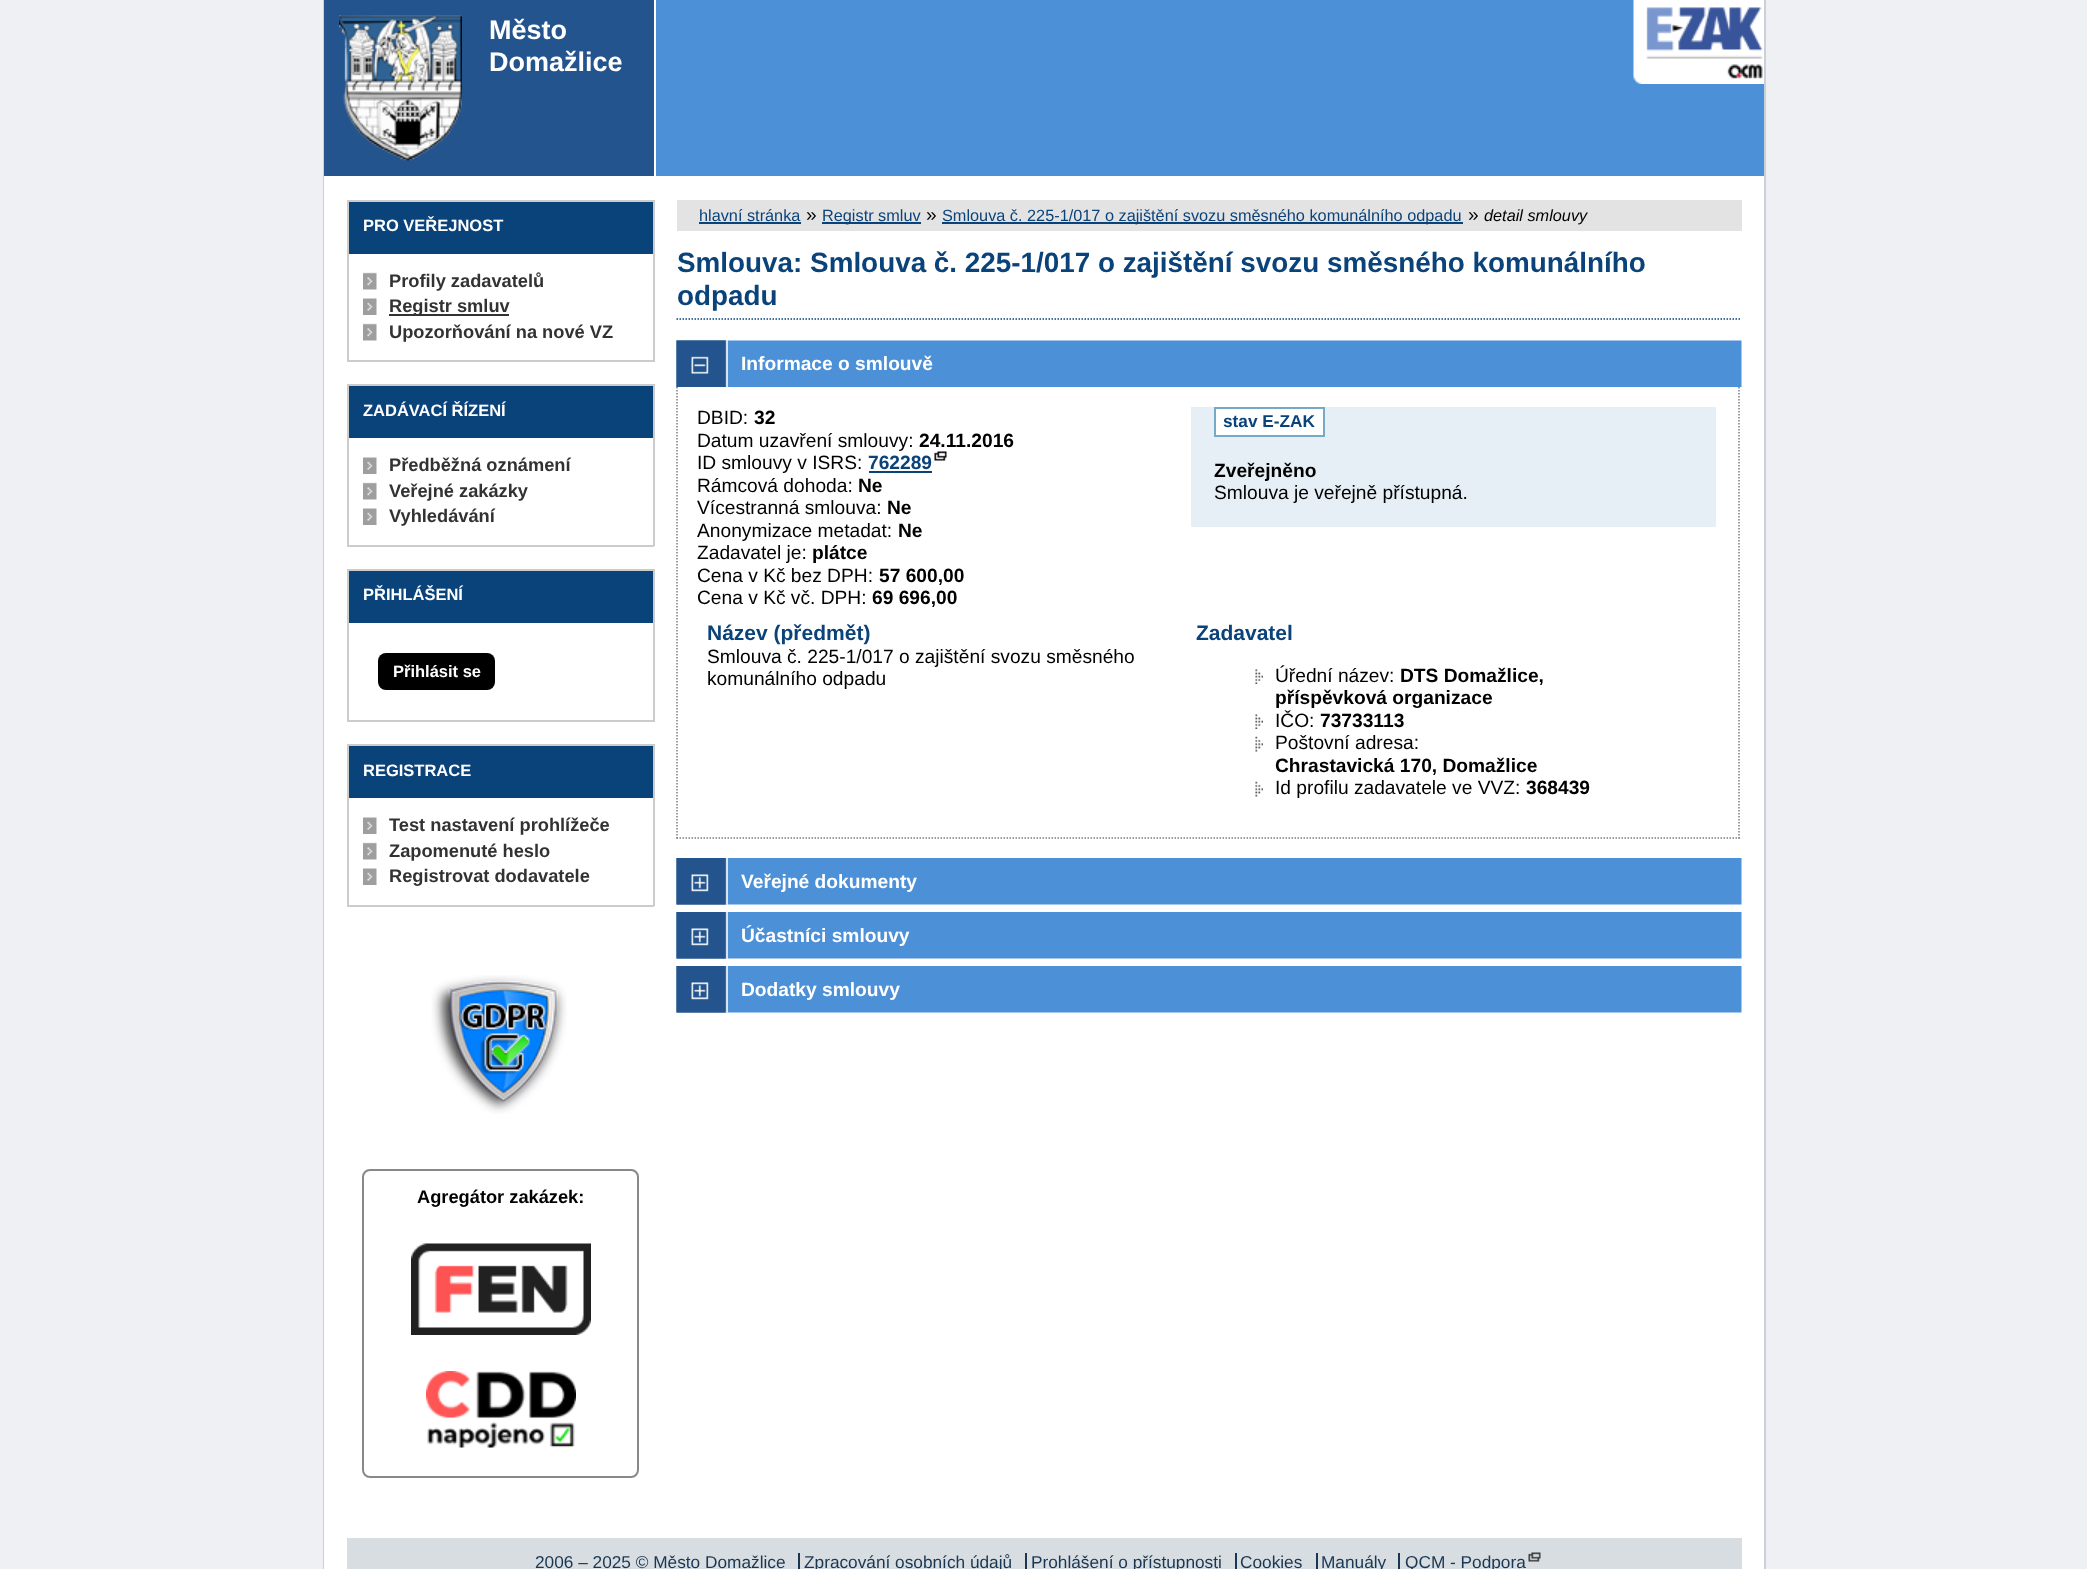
(async () => {
const canvas = document.querySelector("canvas")
canvas.width = 2087
canvas.height = 1569
const c = canvas.getContext("2d")
c.miterLimit = 4
c.fontKerning = "normal"
function T(s,x,y){c.fillText(s,x,y)}
function R(x,y,w,h){c.fillRect(x,y,w,h)}
function Q(x,y,w,h,r){c.beginPath();c.roundRect(x,y,w,h,r);c.fill()}
async function I(src,x,y,w,h){const img=new Image();img.src=src;await img.decode();c.drawImage(img,x,y,w,h)}
let path
c.fillStyle="#eef0f3"
R(0,0,2087,1569)
c.fillStyle="#c9d0d7"
R(1764,0,2,1569)
R(323,0,1,1569)
c.fillStyle="#4c90d7"
R(656,0,1108,176)
c.fillStyle="#23548d"
R(324,0,330,176)
c.fillStyle="#fff"
R(654,0,2,176)
await I("1.png",339,15,123,146)
c.font="bold 27px Liberation Sans"
T("Město",489,39)
T("Domažlice",489,71)
await I("2.png",1633,0,131,84)
R(324,176,1440,1393)
c.fillStyle="#0a427a"
R(349,202,304,52)
c.fillStyle="#ccc"
R(347,200,307,2)
R(653,200,2,162)
R(347,200,2,54)
c.font="bold 16.5px Liberation Sans"
c.fillStyle="#fff"
T("PRO VEŘEJNOST",363,231)
c.fillStyle="#ccc"
R(347,360,307,2)
R(347,254,2,108)
await I("3.png",363,272,14,18)
c.font="bold 18.25px Liberation Sans"
c.fillStyle="#323232"
T("Profily zadavatelů",389,287)
await I("4.png",363,298,14,17)
R(389,314,120,2)
T("Registr smluv",389,312)
await I("3.png",363,323,14,18)
T("Upozorňování na nové VZ",389,338)
c.fillStyle="#0a427a"
R(349,386,304,52)
c.fillStyle="#ccc"
R(347,384,307,2)
R(653,384,2,162)
R(347,384,2,54)
c.font="bold 16.5px Liberation Sans"
c.fillStyle="#fff"
T("ZADÁVACÍ ŘÍZENÍ",363,416)
c.fillStyle="#ccc"
R(347,545,307,2)
R(347,438,2,108)
await I("4.png",363,457,14,17)
c.font="bold 18.25px Liberation Sans"
c.fillStyle="#323232"
T("Předběžná oznámení",389,471)
await I("3.png",363,482,14,18)
T("Veřejné zakázky",389,497)
await I("4.png",363,508,14,17)
T("Vyhledávání",389,522)
c.fillStyle="#0a427a"
R(349,571,304,52)
c.fillStyle="#ccc"
R(347,569,307,2)
R(653,569,2,153)
R(347,569,2,54)
c.font="bold 16.5px Liberation Sans"
c.fillStyle="#fff"
T("PŘIHLÁŠENÍ",363,600)
c.fillStyle="#ccc"
R(347,720,307,2)
R(347,623,2,99)
c.fillStyle="#000"
Q(378,653,117,37,8)
c.fillStyle="#fff"
T("Přihlásit se",393,677)
c.fillStyle="#0a427a"
R(349,746,304,52)
c.fillStyle="#ccc"
R(347,744,307,2)
R(653,744,2,162)
R(347,744,2,54)
c.fillStyle="#fff"
T("REGISTRACE",363,776)
c.fillStyle="#ccc"
R(347,905,307,2)
R(347,798,2,108)
await I("4.png",363,817,14,17)
c.font="bold 18.25px Liberation Sans"
c.fillStyle="#323232"
T("Test nastavení prohlížeče",389,831)
await I("3.png",363,842,14,18)
T("Zapomenuté heslo",389,857)
await I("4.png",363,868,14,17)
T("Registrovat dodavatele",389,882)
await I("5.png",431,975,136,139)
c.beginPath()
c.roundRect(363,1170,275,307,7)
c.strokeStyle="#888"
c.lineWidth=2
c.stroke()
c.fillStyle="#000"
T("Agregátor zakázek:",417,1203)
await I("6.png",411,1243,180,92)
await I("7.png",426,1371,150,77)
c.fillStyle="#e3e3e3"
R(677,200,1065,31)
c.font="16.3px Liberation Sans"
c.fillStyle="#0a427a"
T("hlavní stránka",699,221)
R(699,222,102,2)
c.font="19.2px Liberation Sans"
c.fillStyle="#000"
T("»",806,221)
c.fillStyle="#0a427a"
R(822,222,99,2)
c.font="16.3px Liberation Sans"
T("Registr smluv",822,221)
c.font="19.2px Liberation Sans"
c.fillStyle="#000"
T("»",926,221)
c.fillStyle="#0a427a"
R(942,222,521,2)
c.font="16.3px Liberation Sans"
T("Smlouva č. 225-1/017 o zajištění svozu směsného komunálního odpadu",942,221)
c.font="19.2px Liberation Sans"
c.fillStyle="#000"
T("»",1468,221)
c.font="italic 16.3px Liberation Sans"
T("detail smlouvy",1484,221)
path = new Path2D("M676.5 319h1065")
c.strokeStyle="#0a427a"
c.lineWidth=1.5
c.setLineDash([1.5,1.5])
c.stroke(path)
c.font="bold 27.85px Liberation Sans"
c.fillStyle="#0a427a"
T("Smlouva: Smlouva č. 225-1/017 o zajištění svozu směsného komunálního",677,272)
T("odpadu",677,305)
await I("8.png",676,340,1066,47)
await I("9.png",676,340,52,47)
c.font="bold 19.2px Liberation Sans"
c.fillStyle="#fff"
T("Informace o smlouvě",741,370)
path = new Path2D("M1739 387v451.5")
c.strokeStyle="#7f7f7f"
c.stroke(path)
path = new Path2D("M676.5 838h1063.5")
c.stroke(path)
path = new Path2D("M677 387v451.5")
c.stroke(path)
c.font="19.2px Liberation Sans"
c.fillStyle="#000"
T("DBID:",697,424)
c.font="bold 19.2px Liberation Sans"
T("32",754,424)
c.font="19.2px Liberation Sans"
T("Datum uzavření smlouvy:",697,447)
c.font="bold 19.2px Liberation Sans"
T("24.11.2016",919,447)
c.font="19.2px Liberation Sans"
T("ID smlouvy v ISRS:",697,469)
c.font="bold 19.2px Liberation Sans"
c.fillStyle="#0a427a"
T("762289",868,469)
R(869,471,63,2)
await I("10.png",934,451,13,10)
c.font="19.2px Liberation Sans"
c.fillStyle="#000"
T("Rámcová dohoda:",697,492)
c.font="bold 19.2px Liberation Sans"
T("Ne",858,492)
c.font="19.2px Liberation Sans"
T("Vícestranná smlouva:",697,514)
c.font="bold 19.2px Liberation Sans"
T("Ne",887,514)
c.font="19.2px Liberation Sans"
T("Anonymizace metadat:",697,537)
c.font="bold 19.2px Liberation Sans"
T("Ne",898,537)
c.font="19.2px Liberation Sans"
T("Zadavatel je:",697,559)
c.font="bold 19.2px Liberation Sans"
T("plátce",812,559)
c.font="19.2px Liberation Sans"
T("Cena v Kč bez DPH:",697,582)
c.font="bold 19.2px Liberation Sans"
T("57 600,00",879,582)
c.font="19.2px Liberation Sans"
T("Cena v Kč vč. DPH:",697,604)
c.font="bold 19.2px Liberation Sans"
T("69 696,00",872,604)
c.fillStyle="#e5eff5"
R(1191,407,525,120)
c.fillStyle="#fff"
c.beginPath()
c.rect(1215,408,109,28)
c.fill()
c.strokeStyle="#74a9c8"
c.lineWidth=2
c.setLineDash([])
c.stroke()
c.font="bold 17.25px Liberation Sans"
c.fillStyle="#0a427a"
T("stav E-ZAK",1223,427)
c.font="bold 19.2px Liberation Sans"
c.fillStyle="#000"
T("Zveřejněno",1214,477)
c.font="19.2px Liberation Sans"
T("Smlouva je veřejně přístupná.",1214,499)
c.font="bold 21px Liberation Sans"
c.fillStyle="#0a427a"
T("Název (předmět)",707,640)
c.font="19.2px Liberation Sans"
c.fillStyle="#000"
T("Smlouva č. 225-1/017 o zajištění svozu směsného",707,663)
T("komunálního odpadu",707,685)
c.font="bold 21px Liberation Sans"
c.fillStyle="#0a427a"
T("Zadavatel",1196,640)
await I("11.png",1255,669,8,15)
c.font="19.2px Liberation Sans"
c.fillStyle="#000"
T("Úřední název:",1275,682)
c.font="bold 19.2px Liberation Sans"
T("DTS Domažlice,",1400,682)
T("příspěvková organizace",1275,704)
await I("12.png",1255,714,8,15)
c.font="19.2px Liberation Sans"
T("IČO:",1275,727)
c.font="bold 19.2px Liberation Sans"
T("73733113",1320,727)
await I("13.png",1255,736,8,16)
c.font="19.2px Liberation Sans"
T("Poštovní adresa:",1275,749)
c.font="bold 19.2px Liberation Sans"
T("Chrastavická 170, Domažlice",1275,772)
await I("13.png",1255,781,8,16)
c.font="19.2px Liberation Sans"
T("Id profilu zadavatele ve VVZ:",1275,794)
c.font="bold 19.2px Liberation Sans"
T("368439",1526,794)
await I("14.png",676,858,1066,47)
await I("15.png",676,858,52,47)
c.fillStyle="#fff"
T("Veřejné dokumenty",741,888)
await I("14.png",676,912,1066,47)
await I("15.png",676,912,52,47)
T("Účastníci smlouvy",741,942)
await I("14.png",676,966,1066,47)
await I("15.png",676,966,52,47)
T("Dodatky smlouvy",741,996)
c.fillStyle="#d8dde2"
R(347,1538,1395,31)
c.font="17.25px Liberation Sans"
c.fillStyle="#193653"
T("2006 – 2025 © Město Domažlice",535,1568)
R(798,1553,2,16)
T("Zpracování osobních údajů",804,1568)
R(1025,1553,2,16)
T("Prohlášení o přístupnosti",1031,1568)
R(1235,1553,2,16)
T("Cookies",1240,1568)
R(1316,1553,2,16)
T("Manuály",1321,1568)
R(1398,1553,2,16)
T("QCM - Podpora",1405,1568)
await I("16.png",1528,1552,13,10)
})()
